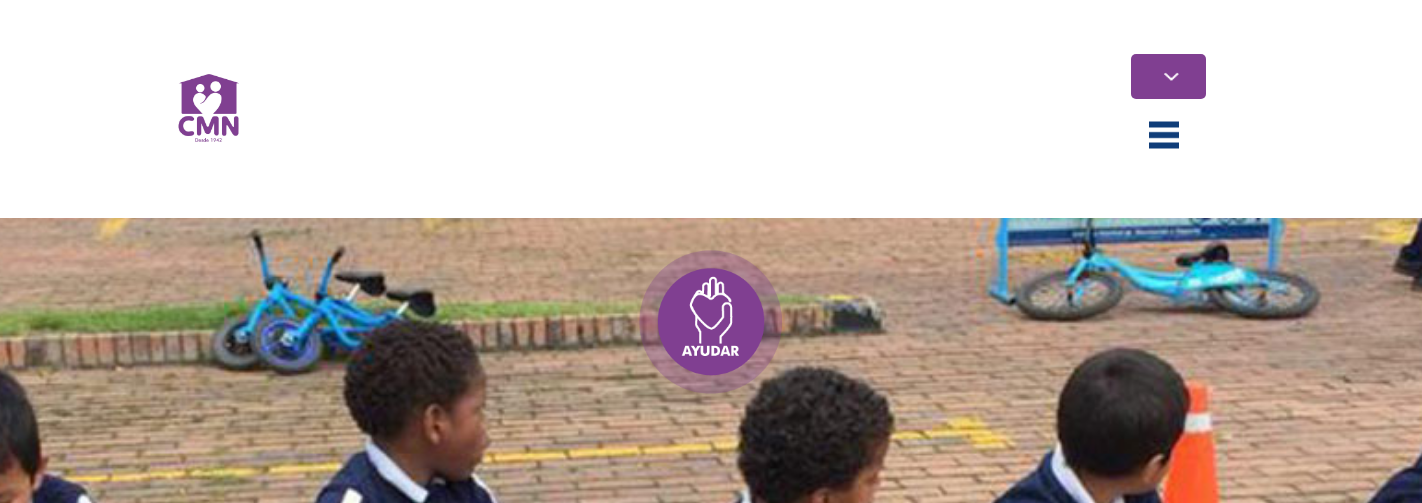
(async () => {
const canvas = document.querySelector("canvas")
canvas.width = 1422
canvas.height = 503
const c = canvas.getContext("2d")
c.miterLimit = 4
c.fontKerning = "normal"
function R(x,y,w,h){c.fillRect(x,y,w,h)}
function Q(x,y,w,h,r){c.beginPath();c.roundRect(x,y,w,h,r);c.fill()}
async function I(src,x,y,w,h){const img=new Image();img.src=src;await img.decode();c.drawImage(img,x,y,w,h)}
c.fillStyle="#fff"
R(0,0,1422,503)
await I("5.png",0,218,1422,285)
c.fillStyle="#0000000d"
c.filter="blur(3px)"
c.beginPath()
c.rect(0,3,1422,218)
c.fill()
c.filter="none"
c.fillStyle="#fff"
R(0,0,1422,218)
await I("1.png",178,74,61,68)
c.fillStyle="#803f91"
Q(1131,54,75,45,5)
await I("2.png",1164,72,15,9)
await I("3.png",1149,121,30,28)
await I("4.png",639,250,143,144)
})()
